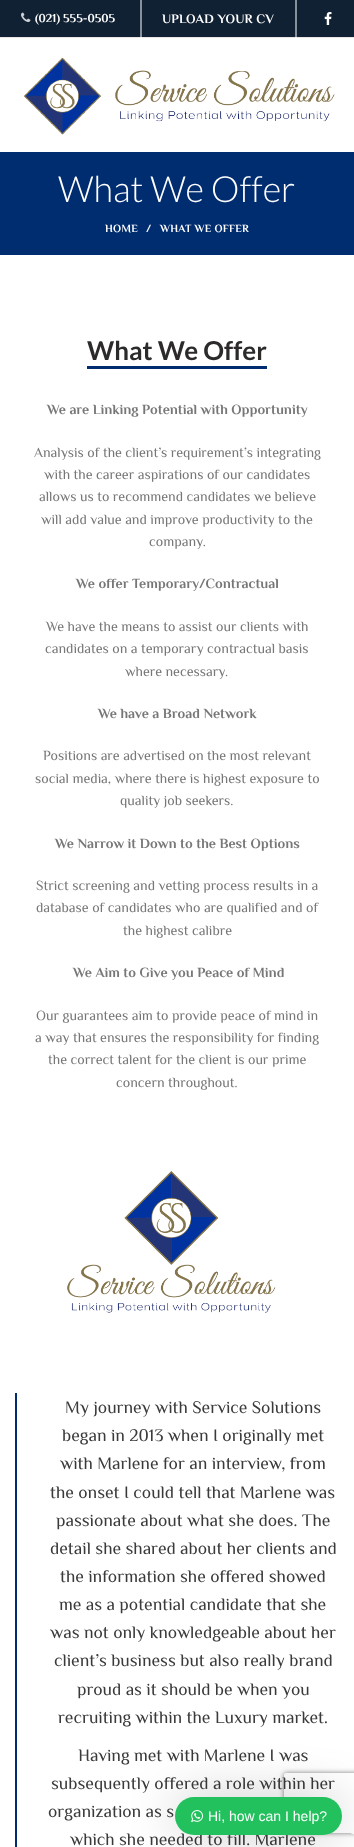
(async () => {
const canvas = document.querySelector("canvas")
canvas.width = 354
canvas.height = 1847
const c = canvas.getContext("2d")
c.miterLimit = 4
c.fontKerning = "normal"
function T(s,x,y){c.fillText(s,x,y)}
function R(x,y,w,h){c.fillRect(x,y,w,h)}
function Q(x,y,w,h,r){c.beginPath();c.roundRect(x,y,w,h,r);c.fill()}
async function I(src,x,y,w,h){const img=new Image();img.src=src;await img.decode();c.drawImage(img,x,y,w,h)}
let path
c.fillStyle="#fff"
R(0,0,354,1847)
c.fillStyle="#112134"
R(0,0,354,37)
c.fillStyle="#eae6e6"
R(0,37,354,1)
await I("1.png",21,12,10,10)
c.font="bold 12px Philosopher"
c.fillStyle="#fff"
T("(021) 555-0505",35,22)
c.strokeStyle="#ffffff80"
c.lineWidth=2
c.strokeRect(141,-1,155,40)
c.letterSpacing="0.25px"
c.font="bold 13px Philosopher"
T("UPLOAD YOUR CV",162,23)
await I("2.png",324,12,8,13)
await I("3.png",24,57,311,78)
c.fillStyle="#002d70"
R(0,152,354,103)
c.letterSpacing="0px"
c.font="300 36px Lato"
c.fillStyle="#fff"
T("What We Offer",58,202)
c.letterSpacing="0.25px"
c.font="bold 11px Philosopher"
T("HOME",105,232)
T("/",146,232)
T("WHAT WE OFFER",160,232)
c.letterSpacing="0px"
c.font="bold 26px Lato"
c.fillStyle="#2d2a2a"
T("What We Offer",87,360)
c.fillStyle="#002d70"
R(87,366,180,3)
c.font="bold 14px Philosopher"
c.fillStyle="#777"
T("We are Linking Potential with Opportunity",47,414)
c.font="14px Philosopher"
T("Analysis of the client’s requirement’s integrating",34,457)
T("with the career aspirations of our candidates",44,479)
T("allows us to recommend candidates we believe",39,501)
T("will add value and improve productivity to the",41,524)
T("company.",149,546)
c.font="bold 14px Philosopher"
T("We offer Temporary/Contractual",76,588)
c.font="14px Philosopher"
T("We have the means to assist our clients with",46,631)
T("candidates on a temporary contractual basis",45,653)
T("where necessary.",125,676)
c.font="bold 14px Philosopher"
T("We have a Broad Network",98,718)
c.font="14px Philosopher"
T("Positions are advertised on the most relevant",43,760)
T("social media, where there is highest exposure to",35,783)
T("quality job seekers.",120,805)
c.font="bold 14px Philosopher"
T("We Narrow it Down to the Best Options",55,848)
c.font="14px Philosopher"
T("Strict screening and vetting process results in a",36,890)
T("database of candidates who are qualified and of",36,912)
T("the highest calibre",123,935)
c.font="bold 14px Philosopher"
T("We Aim to Give you Peace of Mind",73,977)
c.font="14px Philosopher"
T("Our guarantees aim to provide peace of mind in",36,1020)
T("a way that ensures the responsibility for finding",35,1042)
T("the correct talent for the client is our prime",48,1064)
T("concern throughout.",116,1087)
await I("4.png",67,1171,209,142)
c.fillStyle="#002d70"
R(15,1393,2,454)
c.font="17.6px Philosopher"
c.fillStyle="#3a3a3a"
T("My journey with Service Solutions",65,1413)
T("began in 2013 when I originally met",62,1441)
T("with Marlene for an interview, from",60,1469)
T("the onset I could tell that Marlene was",50,1498)
T("passionate about what she does. The",56,1526)
T("detail she shared about her clients and",50,1554)
T("the information she offered showed",60,1582)
T("me as a potential candidate that she",59,1610)
T("was not only knowledgeable about her",50,1638)
T("client’s business but also really brand",54,1666)
T("proud as it should be when you",77,1695)
T("recruiting within the Luxury market.",58,1723)
T("Having met with Marlene I was",78,1761)
T("subsequently offered a role within her",51,1789)
T("organization as s",48,1817)
T("which she needed to fill. Marlene",70,1845)
c.save()
path = new Path2D("M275 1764h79v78h-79zm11 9h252c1 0 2 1 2 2v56c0 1-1 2-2 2h-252c-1 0-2-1-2-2v-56c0-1 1-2 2-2z")
c.clip(path,"evenodd")
c.fillStyle="#808080"
c.filter="blur(2.5px)"
c.beginPath()
c.roundRect(284,1773,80,60,2)
c.fill()
c.filter="none"
c.restore()
c.fillStyle="#fff"
Q(342,1795,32,40,20)
c.fillStyle="#00000033"
c.filter="blur(25px)"
c.beginPath()
c.roundRect(175,1797,167,38,19)
c.fill()
c.filter="none"
c.fillStyle="#22c15e"
Q(175,1797,167,38,19)
await I("5.png",191,1810,12,13)
c.font="14px Liberation Sans"
c.fillStyle="#fff"
T("Hi, how can I help?",208,1821)
})()
